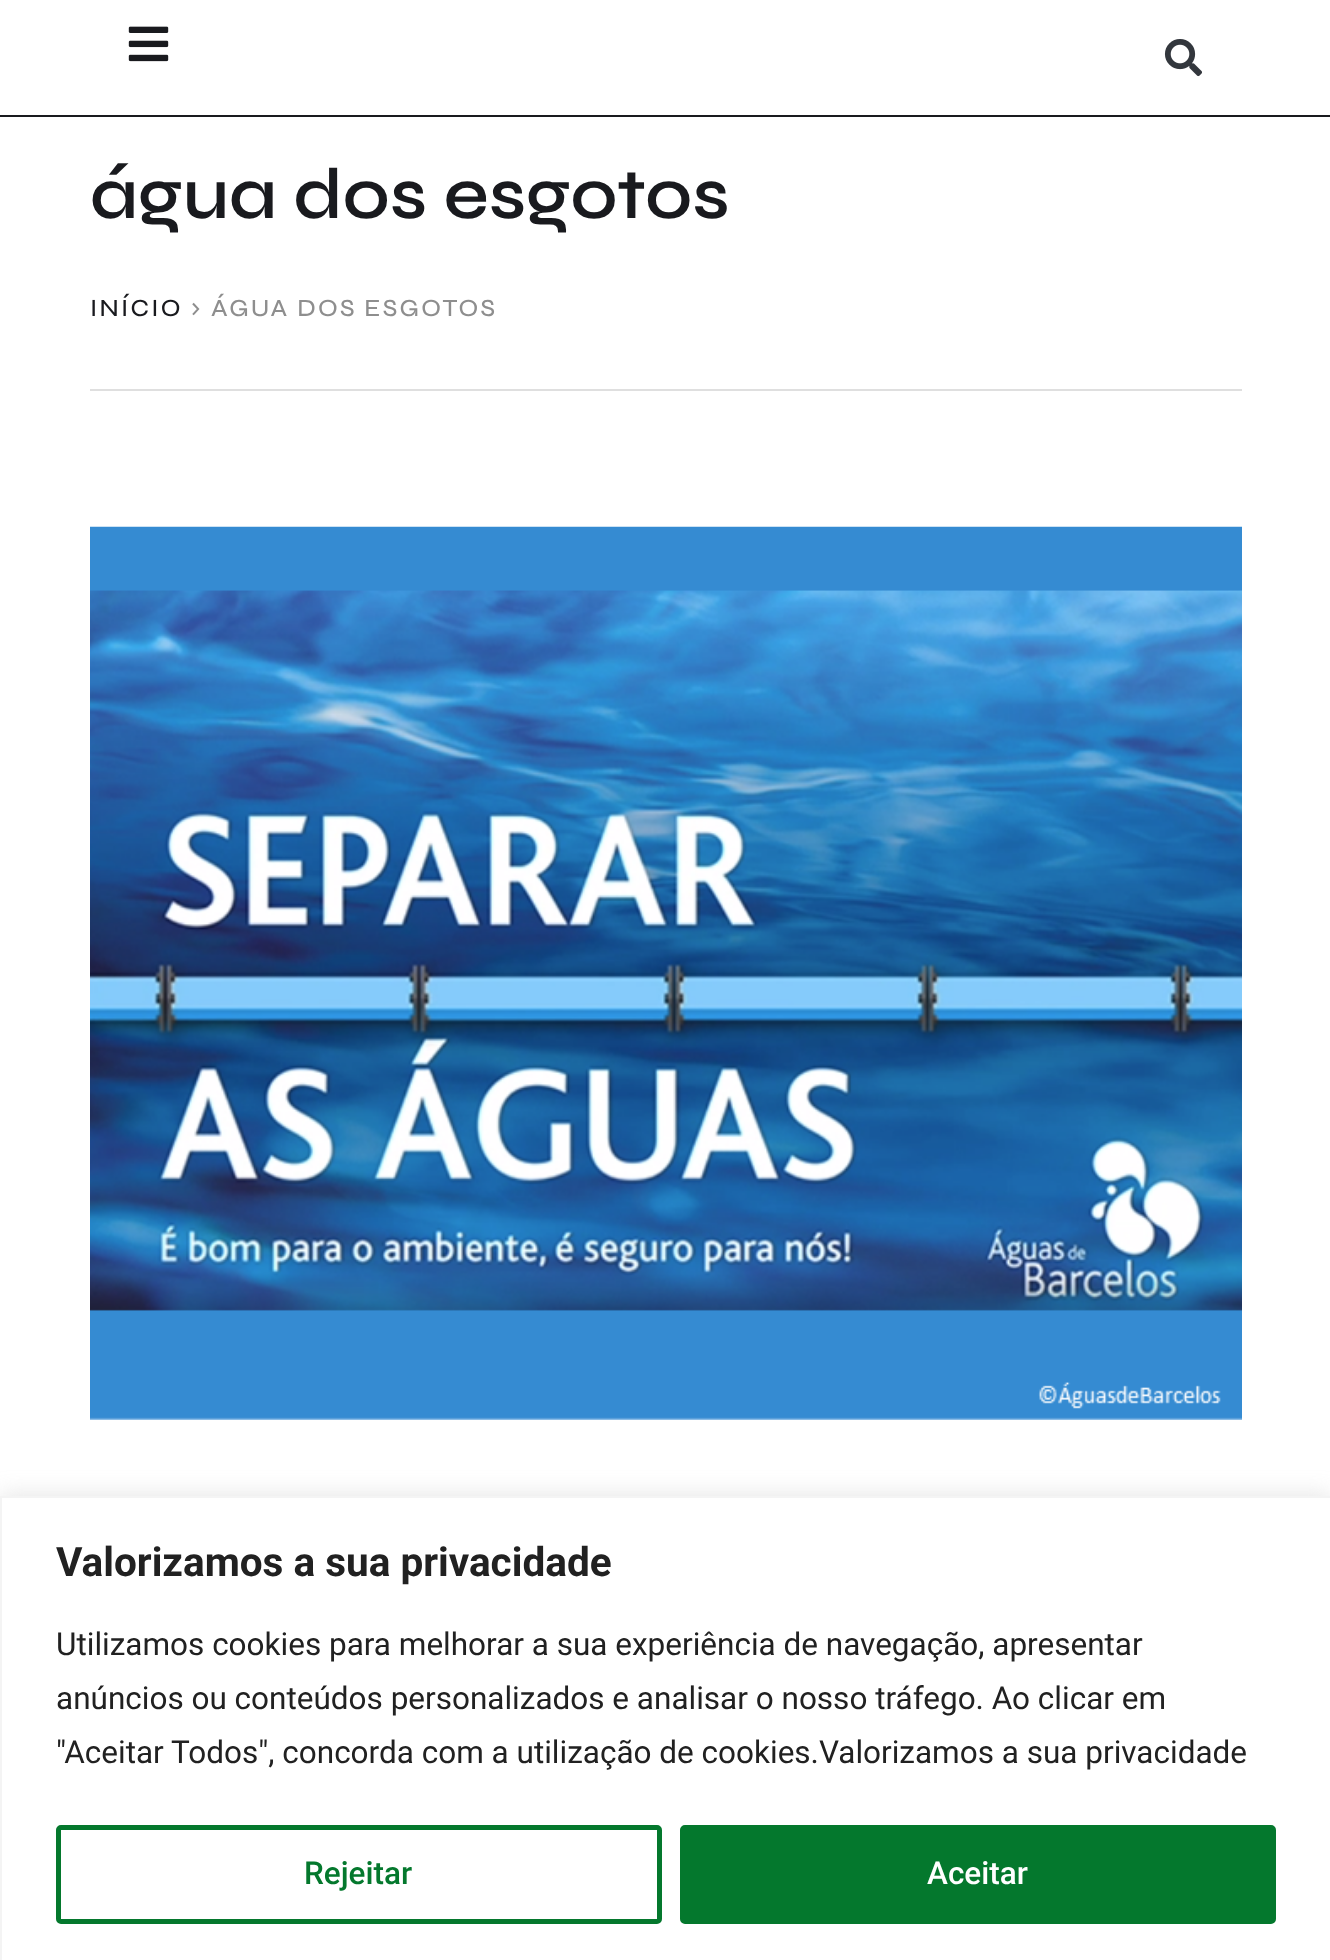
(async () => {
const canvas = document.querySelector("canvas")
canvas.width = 1330
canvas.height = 1960
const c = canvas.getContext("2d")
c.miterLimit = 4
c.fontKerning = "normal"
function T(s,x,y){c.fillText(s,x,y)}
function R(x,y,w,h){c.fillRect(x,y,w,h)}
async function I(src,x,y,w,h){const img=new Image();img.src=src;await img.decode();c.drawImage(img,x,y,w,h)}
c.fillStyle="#fff"
R(0,0,1330,1960)
c.fillStyle="#191a1e"
R(0,115,1330,2)
await I("1.png",128,26,41,36)
await I("2.png",1164,39,38,38)
c.fillStyle="#dfdfdf"
R(90,389,1152,2)
c.font="600 72px Syne"
c.fillStyle="#191a1e"
T("água dos esgotos",90,218)
c.letterSpacing="2.25px"
c.font="500 24.75px Syne"
T("INÍCIO",90,316)
c.fillStyle="#8e8e8e"
T("› ÁGUA DOS ESGOTOS",191,316)
await I("3.png",90,526,1152,894)
c.fillStyle="#acabab4d"
c.filter="blur(11px)"
c.beginPath()
c.rect(0,1494,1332,466)
c.fill()
c.filter="none"
c.fillStyle="#fff"
c.beginPath()
c.rect(1,1497,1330,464)
c.fill()
c.strokeStyle="#f4f4f4"
c.lineWidth=2
c.stroke()
c.letterSpacing="0px"
c.font="bold 40.5px Roboto"
c.fillStyle="#212121"
T("Valorizamos a sua privacidade",56,1576)
c.font="31.5px Roboto"
T("Utilizamos cookies para melhorar a sua experiência de navegação, apresentar",56,1655)
T("anúncios ou conteúdos personalizados e analisar o nosso tráfego. Ao clicar em",56,1709)
T("\"Aceitar Todos\", concorda com a utilização de cookies.Valorizamos a sua privacidade",56,1763)
c.beginPath()
c.roundRect(58.5,1827.5,601,94,2.5)
c.strokeStyle="#04782d"
c.lineWidth=5
c.stroke()
c.font="500 31.5px Roboto"
c.fillStyle="#04782d"
T("Rejeitar",304,1884)
c.beginPath()
c.roundRect(682.5,1827.5,591,94,2.5)
c.fill()
c.stroke()
c.fillStyle="#fff"
T("Aceitar",927,1884)
})()
